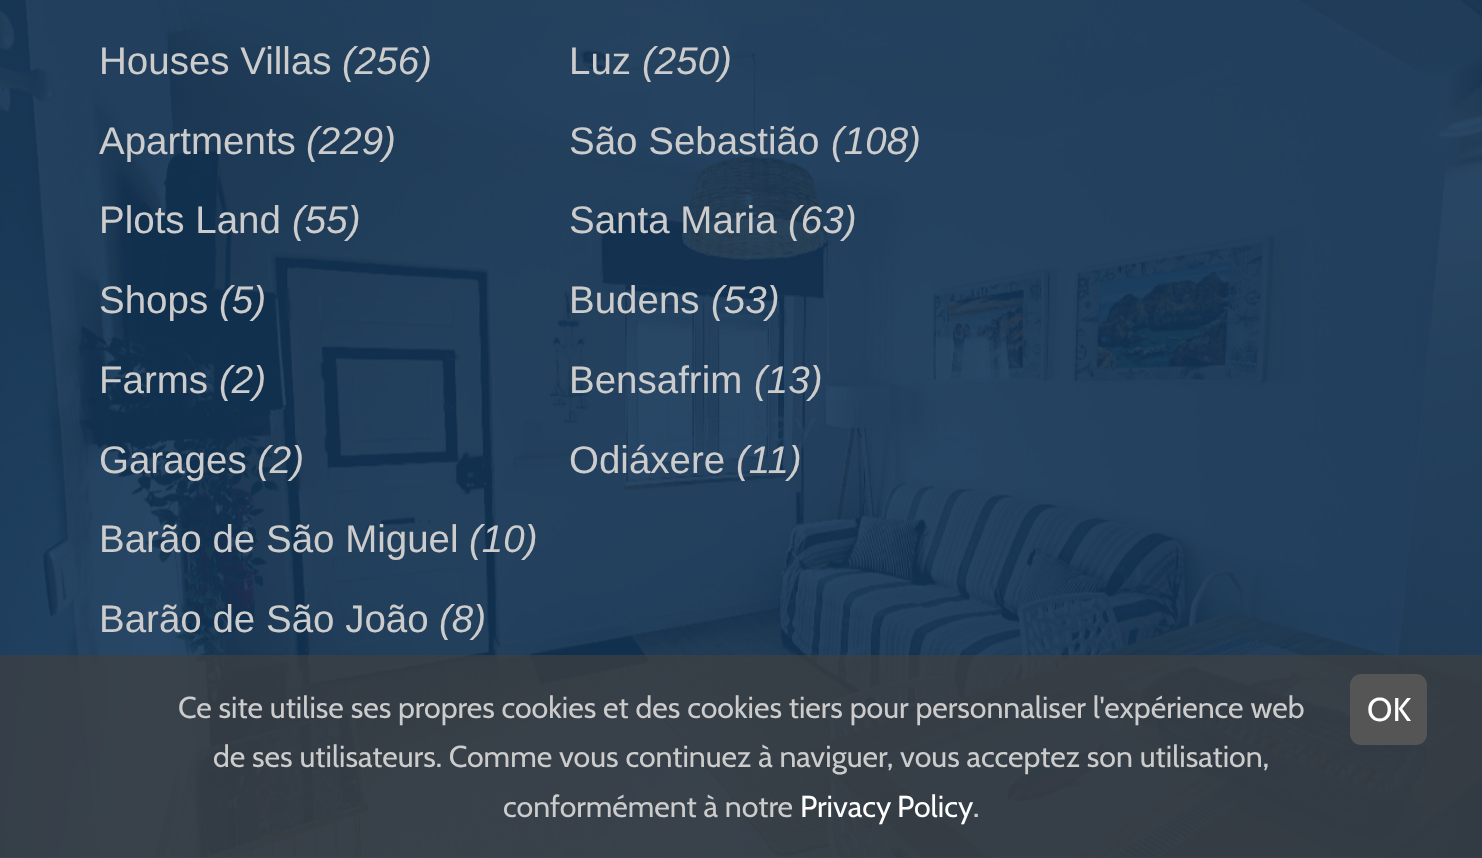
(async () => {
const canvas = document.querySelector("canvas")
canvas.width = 1482
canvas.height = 858
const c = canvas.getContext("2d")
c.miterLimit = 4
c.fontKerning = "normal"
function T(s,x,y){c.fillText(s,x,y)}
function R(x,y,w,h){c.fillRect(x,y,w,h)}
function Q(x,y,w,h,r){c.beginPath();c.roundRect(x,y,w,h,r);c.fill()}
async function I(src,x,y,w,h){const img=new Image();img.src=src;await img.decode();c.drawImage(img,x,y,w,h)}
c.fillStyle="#fff"
R(0,0,1482,858)
await I("1.png",0,0,1482,858)
c.font="38.5px Liberation Sans"
c.fillStyle="#ccc"
T("Houses Villas",99,74)
c.font="italic 38.5px Liberation Sans"
T("(256)",342,74)
c.font="38.5px Liberation Sans"
T("Apartments",99,154)
c.font="italic 38.5px Liberation Sans"
T("(229)",306,154)
c.font="38.5px Liberation Sans"
T("Plots Land",99,233)
c.font="italic 38.5px Liberation Sans"
T("(55)",292,233)
c.font="38.5px Liberation Sans"
T("Shops",99,313)
c.font="italic 38.5px Liberation Sans"
T("(5)",219,313)
c.font="38.5px Liberation Sans"
T("Farms",99,393)
c.font="italic 38.5px Liberation Sans"
T("(2)",219,393)
c.font="38.5px Liberation Sans"
T("Garages",99,473)
c.font="italic 38.5px Liberation Sans"
T("(2)",257,473)
c.font="38.5px Liberation Sans"
T("Luz",569,74)
c.font="italic 38.5px Liberation Sans"
T("(250)",642,74)
c.font="38.5px Liberation Sans"
T("São Sebastião",569,154)
c.font="italic 38.5px Liberation Sans"
T("(108)",831,154)
c.font="38.5px Liberation Sans"
T("Santa Maria",569,233)
c.font="italic 38.5px Liberation Sans"
T("(63)",788,233)
c.font="38.5px Liberation Sans"
T("Budens",569,313)
c.font="italic 38.5px Liberation Sans"
T("(53)",711,313)
c.font="38.5px Liberation Sans"
T("Bensafrim",569,393)
c.font="italic 38.5px Liberation Sans"
T("(13)",754,393)
c.font="38.5px Liberation Sans"
T("Odiáxere",569,473)
c.font="italic 38.5px Liberation Sans"
T("(11)",736,473)
c.font="38.5px Liberation Sans"
T("Barão de São Miguel",99,552)
c.font="italic 38.5px Liberation Sans"
T("(10)",469,552)
c.font="38.5px Liberation Sans"
T("Barão de São João",99,632)
c.font="italic 38.5px Liberation Sans"
T("(8)",439,632)
c.fillStyle="#404040b3"
R(0,655,1482,203)
c.font="30.25px Cabin"
c.fillStyle="#ccc"
T("Ce site utilise ses propres cookies et des cookies tiers pour personnaliser l'expérience web",178,718)
c.fillStyle="#555"
Q(1350,674,77,71,11)
c.font="33px Cabin"
c.fillStyle="#fff"
T("OK",1367,721)
c.font="30.25px Cabin"
c.fillStyle="#ccc"
T("de ses utilisateurs. Comme vous continuez à naviguer, vous acceptez son utilisation,",213,767)
T("conformément à notre",503,817)
c.wordSpacing="-1px"
c.fillStyle="#fff"
T("Privacy Policy",800,817)
c.wordSpacing="0px"
c.fillStyle="#ccc"
T(".",973,817)
})()
